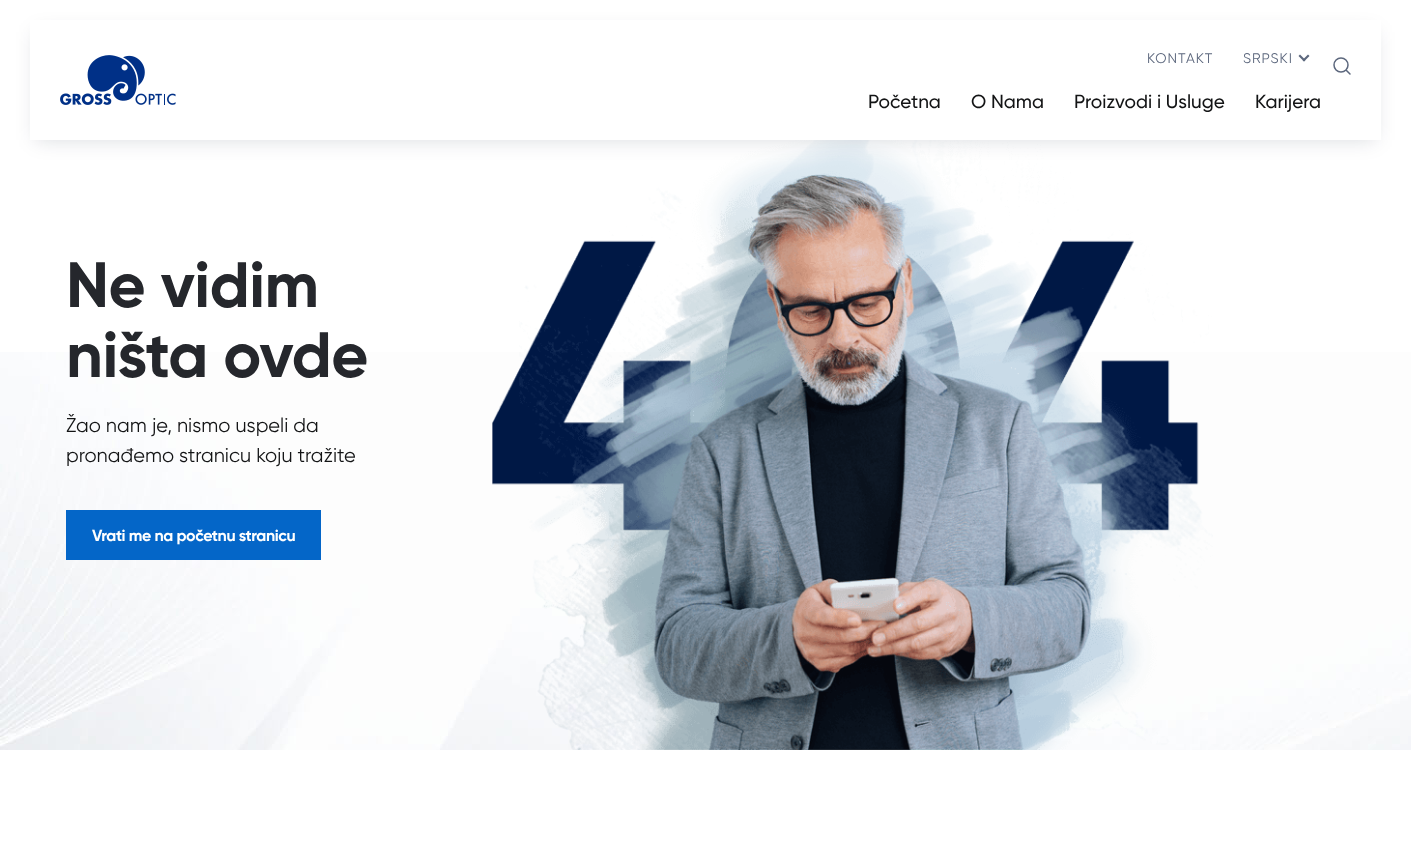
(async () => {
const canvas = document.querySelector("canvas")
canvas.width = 1411
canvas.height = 866
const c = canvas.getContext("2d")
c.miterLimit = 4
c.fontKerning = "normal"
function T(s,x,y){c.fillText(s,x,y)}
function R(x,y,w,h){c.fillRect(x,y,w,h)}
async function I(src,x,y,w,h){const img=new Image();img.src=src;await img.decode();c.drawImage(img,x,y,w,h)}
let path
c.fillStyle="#fff"
R(0,0,1411,866)
await I("2.png",0,352,1411,398)
await I("3.png",492,140,721,610)
c.fillStyle="#000e2826"
c.filter="blur(10px)"
c.beginPath()
c.rect(36,32,1339,108)
c.fill()
c.filter="none"
c.fillStyle="#fff"
R(30,20,1351,120)
await I("1.png",60,55,116,50)
c.letterSpacing="1px"
c.font="14px Gilroy"
c.fillStyle="#5c677d"
T("KONTAKT",1147,63)
T("SRPSKI",1243,63)
path = new Path2D("M1308 54.5l1.5 1.5l-5.5 5.5l-1.5-1.5z")
c.fill(path)
path = new Path2D("M1300 54.5l5.5 5.5l-1.5 1.5l-5.5-5.5z")
c.fill(path)
c.beginPath()
c.arc(1341,65,7,0,7)
c.strokeStyle="#5c677d"
c.lineWidth=1.5
c.stroke()
path = new Path2D("M1350 74l-3.5-3.5")
c.lineCap="round"
c.lineJoin="round"
c.stroke(path)
c.letterSpacing="0px"
c.font="500 19px Gilroy"
c.fillStyle="#131415"
T("Početna",868,108)
T("O Nama",971,108)
T("Proizvodi i Usluge",1074,108)
T("Karijera",1255,108)
c.letterSpacing="-0.5px"
c.font="bold 64px Gilroy"
c.fillStyle="#25272c"
T("Ne vidim",66,307)
T("ništa ovde",66,377)
c.letterSpacing="0px"
c.font="20px Gilroy"
c.fillStyle="#131415"
T("Žao nam je, nismo uspeli da",66,432)
T("pronađemo stranicu koju tražite",66,462)
c.fillStyle="#0466c8"
R(66,510,255,50)
c.letterSpacing="-0.4px"
c.font="bold 16px Gilroy"
c.fillStyle="#fff"
T("Vrati me na početnu stranicu",92,541)
})()
